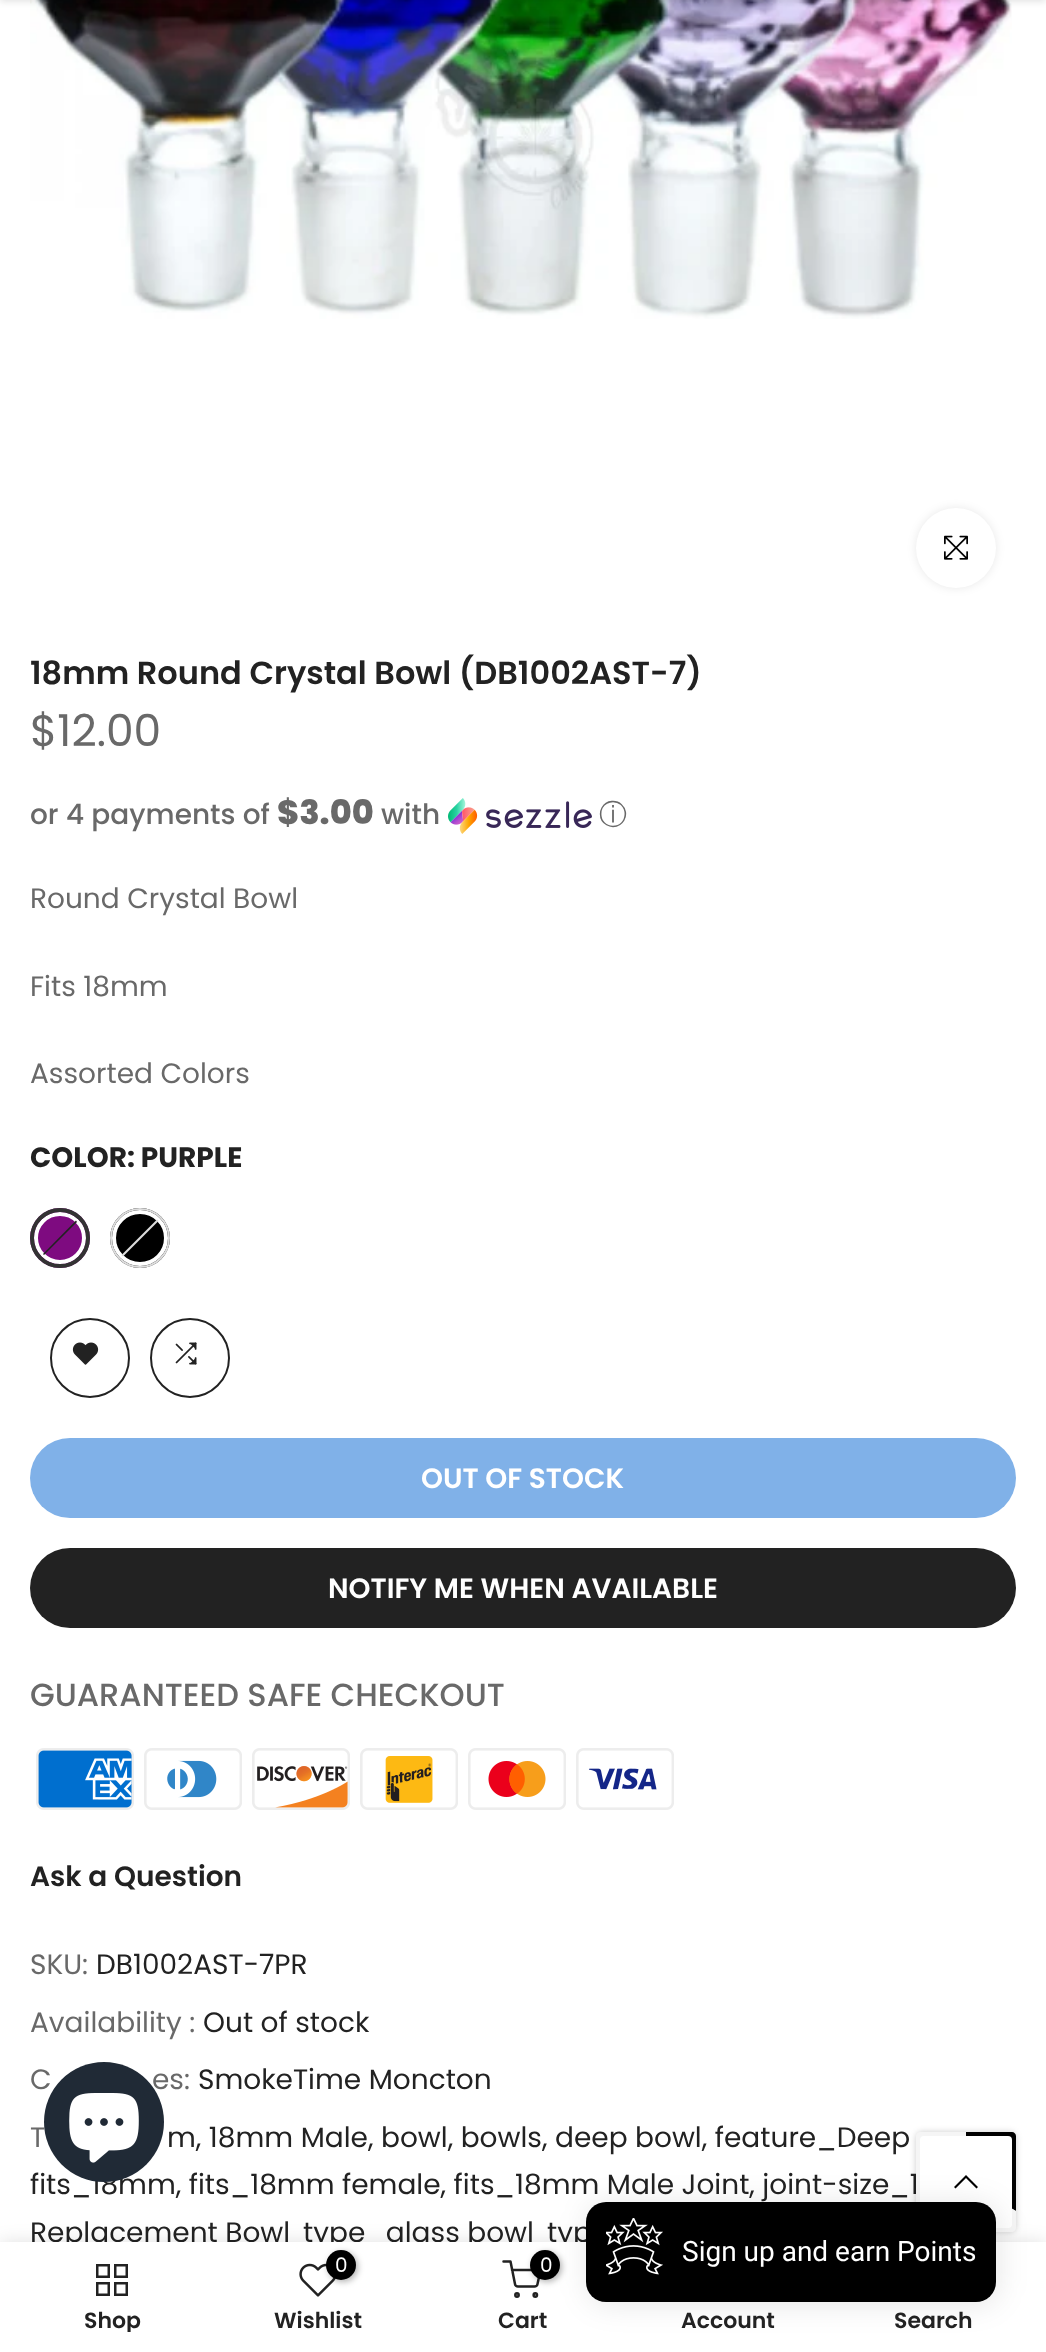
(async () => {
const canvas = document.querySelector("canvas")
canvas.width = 1046
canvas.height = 2352
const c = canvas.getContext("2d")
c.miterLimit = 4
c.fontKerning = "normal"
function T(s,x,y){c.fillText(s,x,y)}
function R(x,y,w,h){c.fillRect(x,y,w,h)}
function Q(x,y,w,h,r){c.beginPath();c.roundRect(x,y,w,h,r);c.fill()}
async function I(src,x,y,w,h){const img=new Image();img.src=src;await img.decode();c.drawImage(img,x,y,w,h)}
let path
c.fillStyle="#fff"
R(0,0,1046,2352)
await I("1.png",30,0,982,319)
c.fillStyle="#0000001a"
c.filter="blur(3px)"
c.beginPath()
c.rect(0,-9,1046,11)
c.fill()
c.filter="none"
c.fillStyle="#00000017"
c.filter="blur(5px)"
c.beginPath()
c.roundRect(916,508,80,80,40)
c.fill()
c.filter="none"
c.fillStyle="#fff"
c.beginPath()
c.arc(956,548,40,0,7)
c.fill()
await I("2.png",944,535,24,25)
c.font="600 32px Poppins"
c.fillStyle="#222"
T("18mm Round Crystal Bowl (DB1002AST-7)",30,684)
c.font="44px Poppins"
c.fillStyle="#696969"
T("$12.00",30,746)
c.font="500 28px Poppins"
T("or 4 payments of",30,824)
c.font="800 33.5px Poppins"
T("$3.00",277,824)
c.font="500 28px Poppins"
T("with",381,824)
await I("3.png",448,798,144,36)
c.font="500 28px WenQuanYi Zen Hei"
T("ⓘ",599,824)
c.font="28px Poppins"
T("Round Crystal Bowl",30,908)
T("Fits 18mm",30,996)
T("Assorted Colors",30,1083)
c.font="bold 28px Poppins"
c.fillStyle="#222"
T("COLOR: PURPLE",30,1167)
c.fillStyle="#7e0b80"
c.beginPath()
c.arc(60,1238,30,0,7)
c.fill()
c.beginPath()
c.arc(60,1238,24,0,7)
c.strokeStyle="#fff"
c.lineWidth=4
c.stroke()
c.beginPath()
c.arc(60,1238,28,0,7)
c.strokeStyle="#333"
c.stroke()
c.fillStyle="#222"
path = new Path2D("M77 1222l-33 33l-1-1l33-33.5z")
c.fill(path)
c.fillStyle="#000"
c.beginPath()
c.arc(140,1238,30,0,7)
c.fill()
c.beginPath()
c.arc(140,1238,26,0,7)
c.strokeStyle="#fff"
c.stroke()
c.beginPath()
c.arc(140,1238,29,0,7)
c.strokeStyle="#ddd"
c.lineWidth=2
c.stroke()
c.fillStyle="#ddd"
path = new Path2D("M158.5 1221l-35.5 35.5l-1.5-1.5l35.5-35.5z")
c.fill(path)
c.beginPath()
c.arc(90,1358,39,0,7)
c.strokeStyle="#222"
c.stroke()
await I("4.png",72,1342,27,23)
c.beginPath()
c.arc(190,1358,39,0,7)
c.stroke()
await I("5.png",175,1342,22,23)
c.fillStyle="#80b1e8"
Q(30,1438,986,80,40)
c.font="600 28px Poppins"
c.fillStyle="#fff"
T("OUT OF STOCK",421,1488)
c.fillStyle="#222"
Q(30,1548,986,80,40)
c.fillStyle="#fff"
T("NOTIFY ME WHEN AVAILABLE",328,1598)
c.font="500 32px Poppins"
c.fillStyle="#696969"
T("GUARANTEED SAFE CHECKOUT",30,1706)
await I("6.png",36,1748,98,62)
await I("7.png",144,1748,98,62)
await I("8.png",252,1748,98,62)
await I("9.png",360,1748,98,62)
await I("10.png",468,1748,98,62)
await I("11.png",576,1748,98,62)
c.font="600 28px Poppins"
c.fillStyle="#222"
T("Ask a Question",30,1886)
c.font="28px Poppins"
c.fillStyle="#696969"
T("SKU:",30,1974)
c.fillStyle="#222"
T("DB1002AST-7PR",96,1974)
c.fillStyle="#696969"
T("Availability :",30,2032)
c.fillStyle="#222"
T("Out of stock",203,2032)
c.fillStyle="#696969"
T("C",30,2089)
T("es:",152,2089)
c.fillStyle="#222"
T("SmokeTime Moncton",198,2089)
c.fillStyle="#696969"
T("T",30,2147)
c.fillStyle="#222"
T("m, 18mm Male, bowl, bowls, deep bowl, feature_Deep",167,2147)
T("fits_18mm, fits_18mm female, fits_18mm Male Joint, joint-size_1",30,2194)
T("Replacement Bowl",30,2242)
T("type_glass bowl",303,2242)
T("typ",547,2242)
c.fillStyle="#202a36"
c.beginPath()
c.arc(104,2122,60,0,7)
c.fill()
await I("12.png",69,2093,70,70)
c.fillStyle="#00000033"
c.filter="blur(3px)"
c.beginPath()
c.roundRect(916,2132,100,100,6)
c.fill()
c.filter="none"
c.fillStyle="#000"
path = new Path2D("M966 2182l50 29v-75c0-2-2-4-4-4h-46z")
c.fill(path)
c.fillStyle="#0000001f"
c.filter="blur(9px)"
c.beginPath()
c.rect(0,2242,1046,110)
c.fill()
c.filter="none"
c.fillStyle="#f5f5f5"
path = new Path2D("M966 2182v-50h-46c-2 0-4 2-4 4v92c0 2 2 4 4 4h92c2 0 4-2 4-4v-17z")
c.fill(path)
c.fillStyle="#fff"
Q(920,2136,92,92,4)
c.fillStyle="#000"
path = new Path2D("M967.5 2176.5l-1.5-1.5l-12 12l1.5 1.5l10.5-10.5l10.5 10.5l1.5-1.5l-6-6z")
c.fill(path)
c.fillStyle="#fff"
R(0,2242,1046,110)
path = new Path2D("M503.5 2261.5h7l4.5 22.5c0 1.5 1.5 2.5 3 2.5h16.5c1.5 0 3-1 3-2.5l3-14h-28.5")
c.lineWidth=2.5
c.lineCap="round"
c.lineJoin="round"
c.stroke(path)
c.fillStyle="#0000004d"
c.filter="blur(3px)"
c.beginPath()
c.roundRect(532,2252,30,30,15)
c.fill()
c.filter="none"
c.fillStyle="#000"
c.beginPath()
c.arc(545,2265,15,0,7)
c.fill()
c.fillStyle="#0000001a"
c.filter="blur(15px)"
c.beginPath()
c.roundRect(588,2204,410,100,20)
c.fill()
c.filter="none"
c.fillStyle="#000"
Q(586,2202,410,100,20)
await I("13.png",606,2218,57,57)
c.font="28px Roboto"
c.fillStyle="#fff"
T("Sign up and earn Points",682,2261)
c.lineJoin="miter"
c.strokeRect(97.25,2265.25,11.5,11.5)
c.strokeRect(115.25,2265.25,11.5,11.5)
c.strokeRect(97.25,2283.25,11.5,11.5)
c.strokeRect(115.25,2283.25,11.5,11.5)
c.save()
c.beginPath()
c.rect(30,2310,166,22)
c.clip()
c.font="600 22px Poppins"
c.fillStyle="#222"
T("Shop",84,2328)
c.restore()
await I("14.png",299,2263,37,34)
c.fillStyle="#0000004d"
c.filter="blur(3px)"
c.beginPath()
c.roundRect(328,2252,30,30,15)
c.fill()
c.filter="none"
c.fillStyle="#000"
c.beginPath()
c.arc(341,2265,15,0,7)
c.fill()
c.font="20px Poppins"
c.fillStyle="#fff"
T("0",335,2272)
c.font="600 22px Poppins"
c.fillStyle="#222"
T("Wishlist",274,2328)
c.font="20px Poppins"
c.fillStyle="#fff"
T("0",540,2272)
c.beginPath()
c.arc(517,2295,1.7,0,7)
c.stroke()
c.beginPath()
c.arc(535.3,2295,1.7,0,7)
c.stroke()
c.font="600 22px Poppins"
c.fillStyle="#222"
T("Cart",498,2328)
T("Account",681,2328)
T("Search",894,2328)
})()
